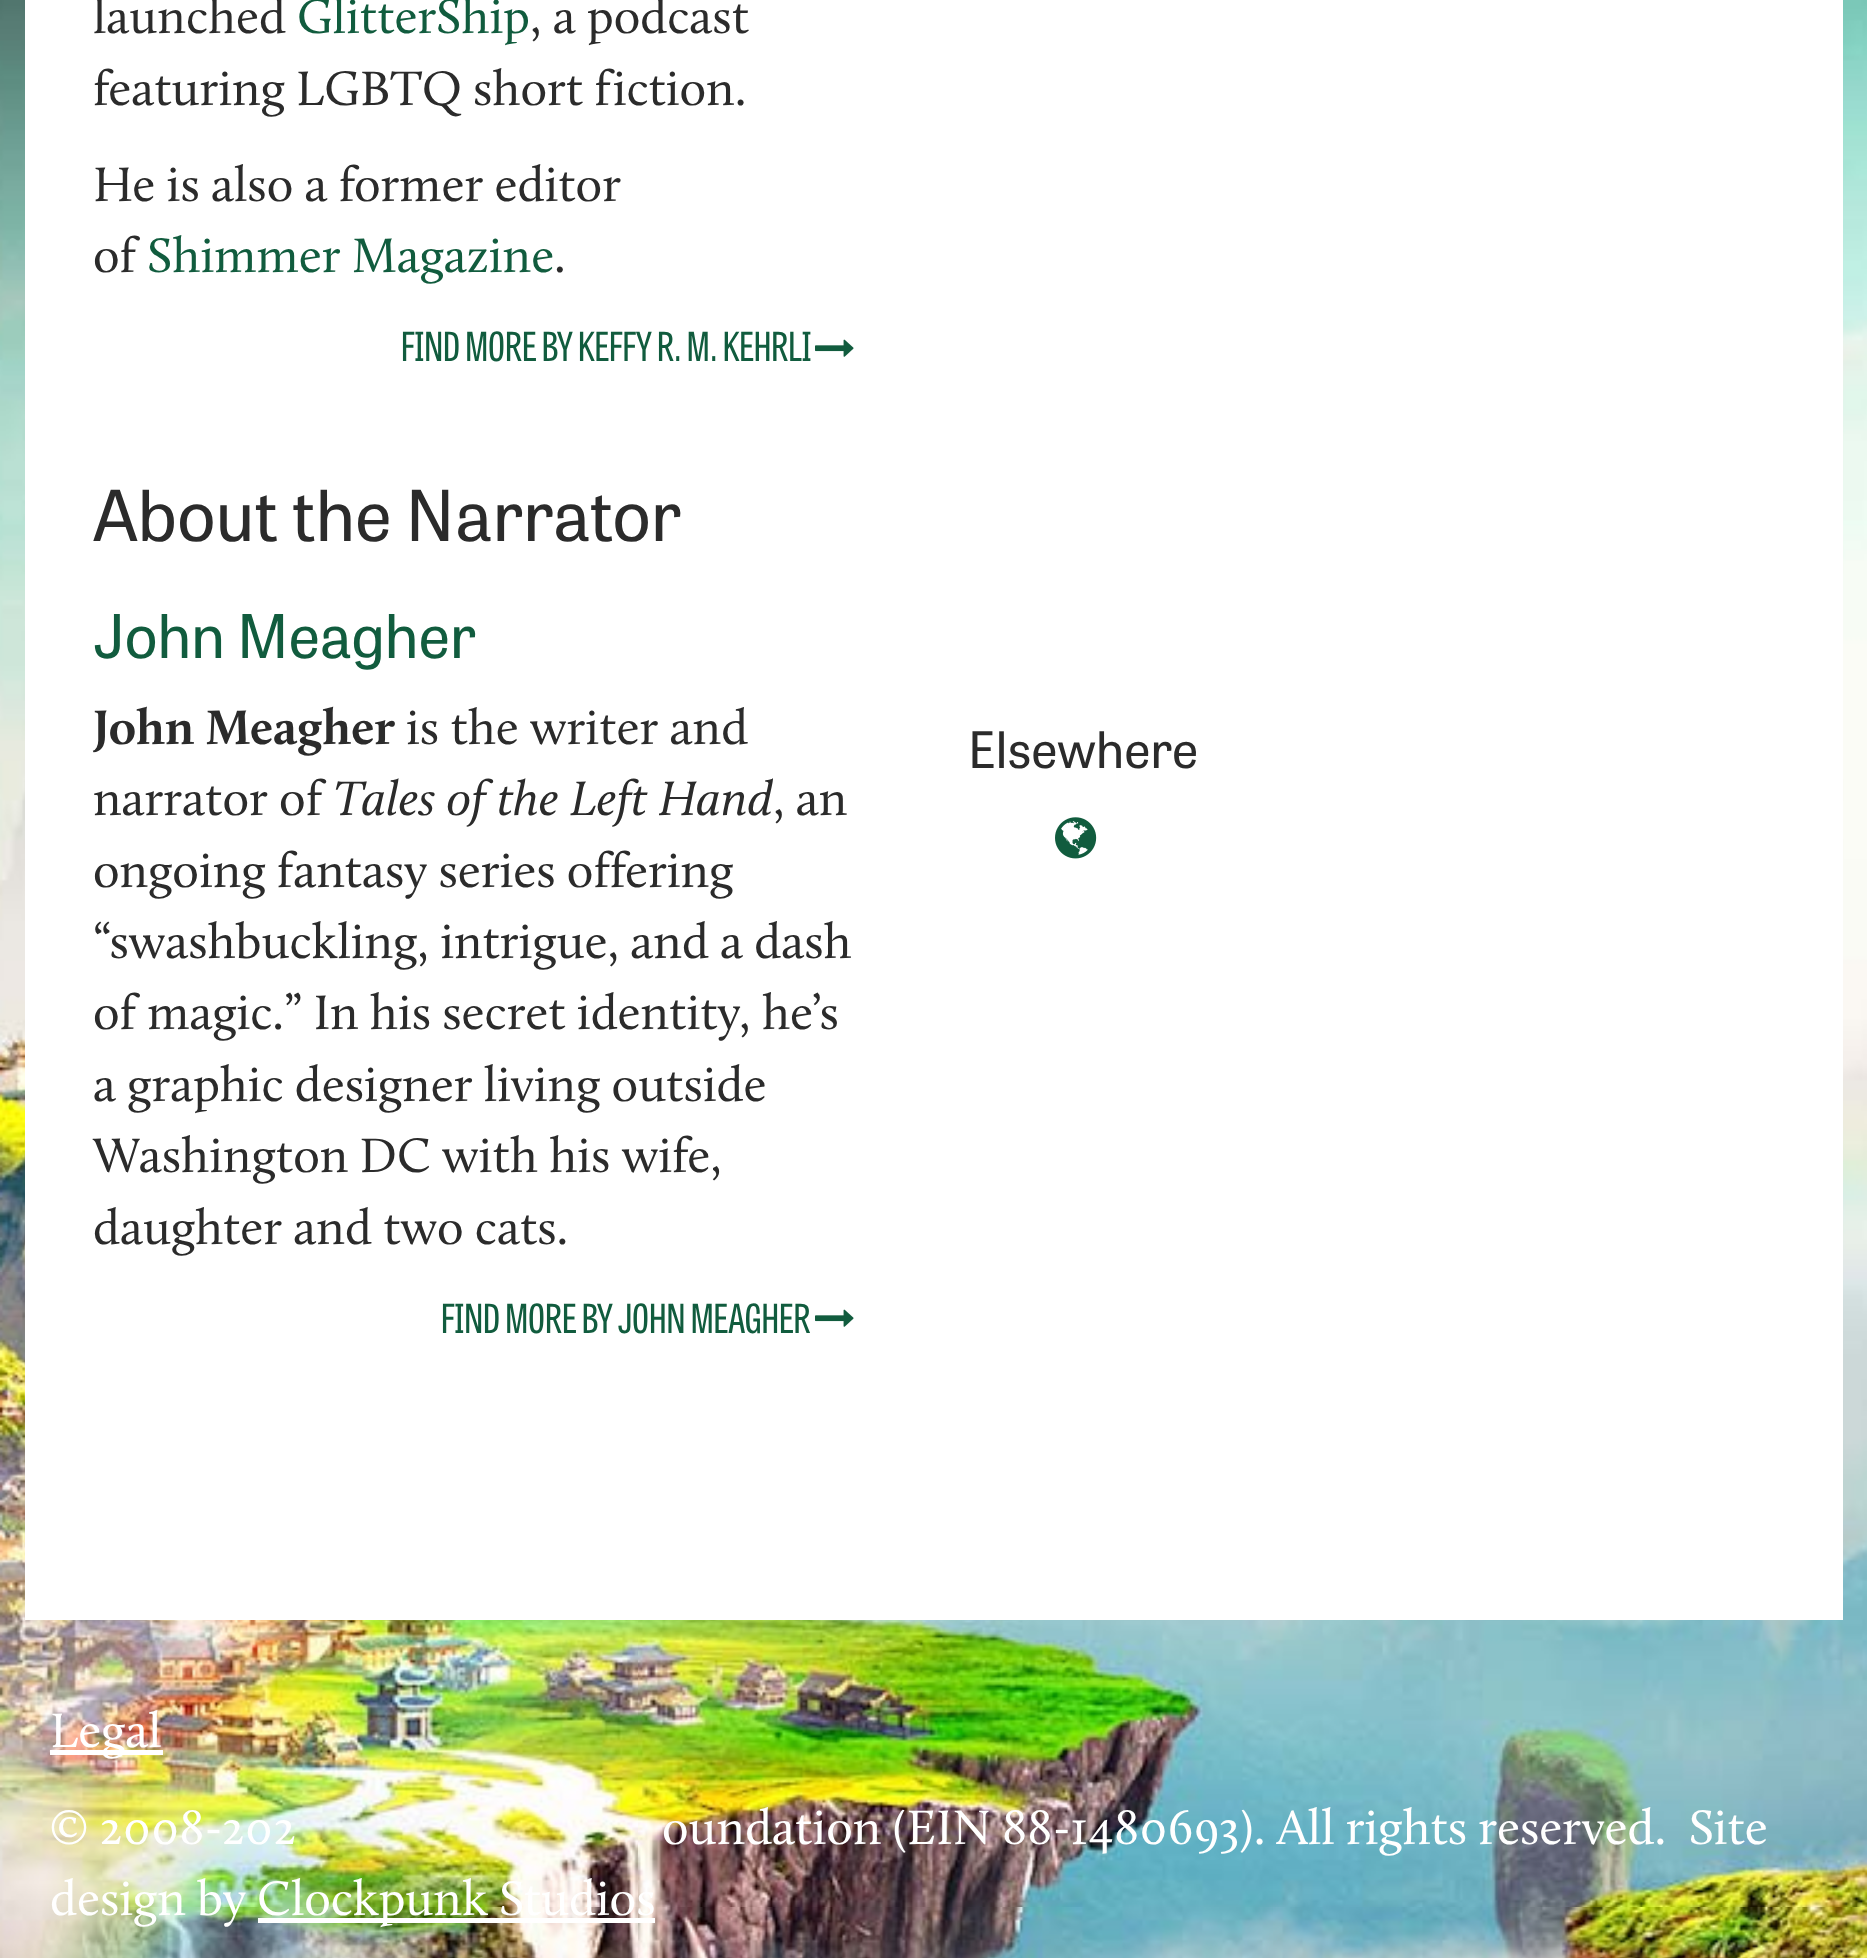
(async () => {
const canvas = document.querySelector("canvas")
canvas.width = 1867
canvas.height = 1958
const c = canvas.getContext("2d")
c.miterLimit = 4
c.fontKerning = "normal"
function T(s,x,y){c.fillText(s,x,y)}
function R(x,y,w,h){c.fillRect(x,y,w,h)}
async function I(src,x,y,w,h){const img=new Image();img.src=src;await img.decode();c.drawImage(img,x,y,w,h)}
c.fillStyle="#fff"
R(0,0,1867,1958)
await I("1.png",0,0,1867,1958)
R(25,0,1818,1620)
c.font="50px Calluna"
c.fillStyle="#2b2b2b"
T("launched",93,33)
c.fillStyle="#115c3e"
T("GlitterShip",297,33)
c.fillStyle="#2b2b2b"
T(", a podcast",530,33)
T("featuring LGBTQ short fiction.",93,105)
T("He is also a former editor",93,201)
T("of",93,272)
c.fillStyle="#115c3e"
T("Shimmer Magazine",147,272)
c.fillStyle="#2b2b2b"
T(".",554,272)
c.font="40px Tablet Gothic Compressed"
c.fillStyle="#115c3e"
T("FIND MORE BY KEFFY R. M. KEHRLI",401,361)
await I("2.png",815,339,39,18)
c.font="70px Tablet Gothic"
c.fillStyle="#2b2b2b"
T("About the Narrator",93,541)
c.font="60px Tablet Gothic"
c.fillStyle="#115c3e"
T("John Meagher",93,658)
c.font="bold 50px Calluna"
c.fillStyle="#2b2b2b"
T("John Meagher",93,744)
c.font="50px Calluna"
T("is the writer and",406,744)
T("narrator of",93,815)
c.font="italic 50px Calluna"
T("Tales of the Left Hand",333,815)
c.font="50px Calluna"
T(", an",773,815)
T("ongoing fantasy series offering",93,887)
T("“swashbuckling, intrigue, and a dash",93,958)
T("of magic.” In his secret identity, he’s",93,1029)
T("a graphic designer living outside",93,1101)
T("Washington DC with his wife,",93,1172)
T("daughter and two cats.",93,1244)
c.font="40px Tablet Gothic Compressed"
c.fillStyle="#115c3e"
T("FIND MORE BY JOHN MEAGHER",441,1333)
await I("2.png",815,1309,39,18)
c.font="50px Tablet Gothic"
c.fillStyle="#2b2b2b"
T("Elsewhere",968,768)
await I("3.png",1055,817,42,42)
c.fillStyle="#fff"
R(50,1750,113,5)
c.font="50px Calluna"
T("Legal",50,1747)
T("© 2008-202",50,1844)
T("oundation (EIN 88-1480693). All rights reserved.  Site",662,1844)
T("design by",50,1915)
R(258,1918,397,5)
T("Clockpunk Studios",257,1915)
})()
